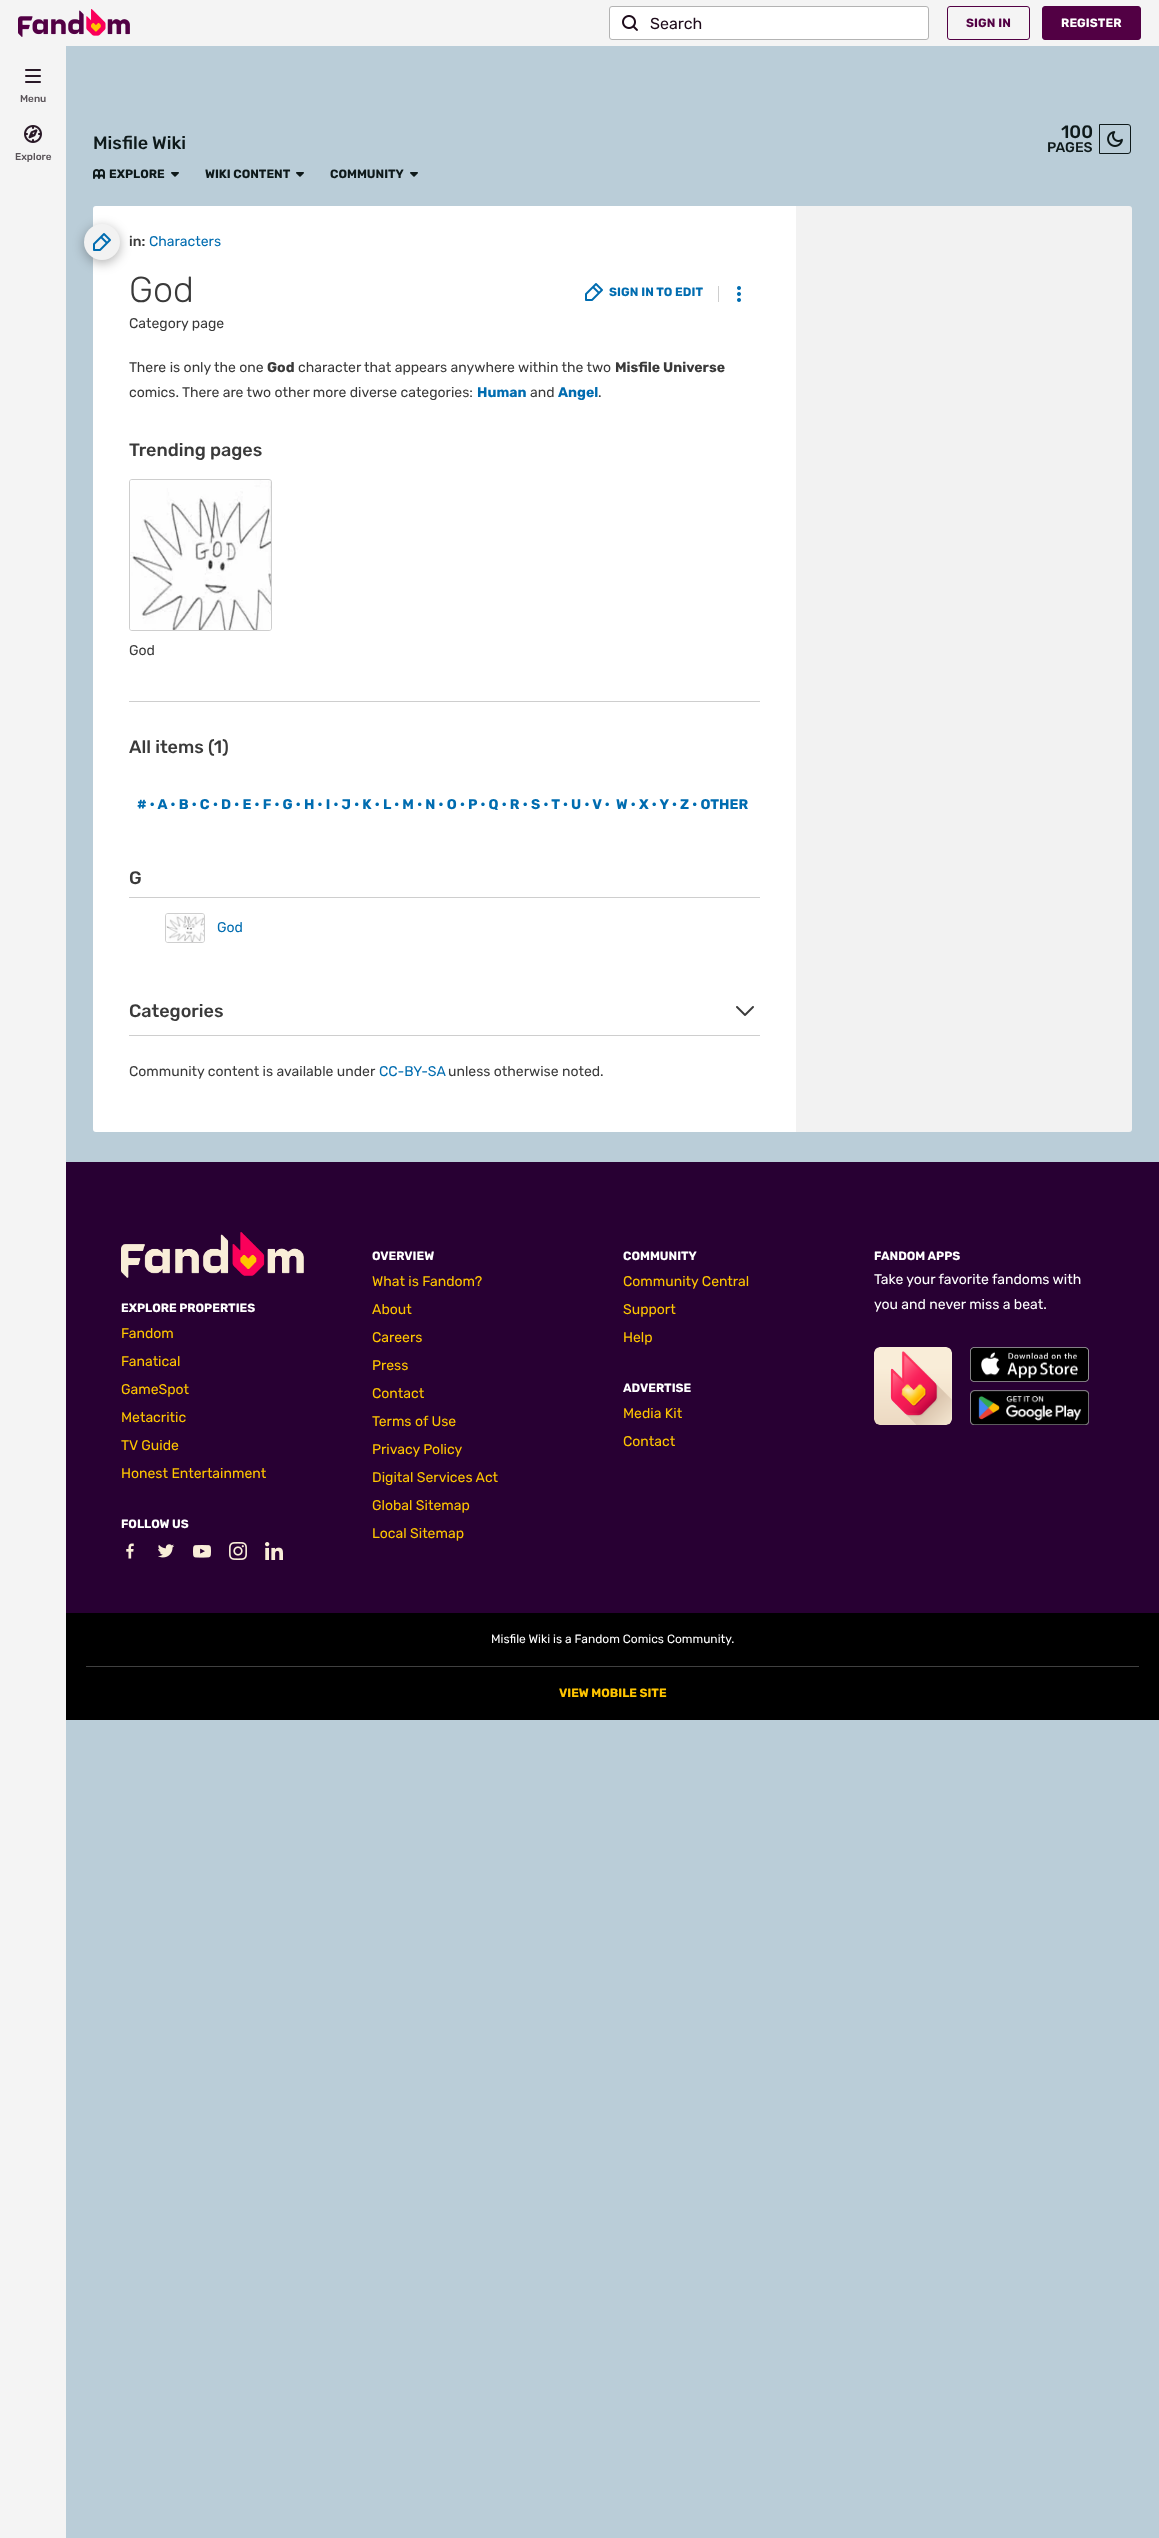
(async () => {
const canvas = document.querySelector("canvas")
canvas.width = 1159
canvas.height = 2538
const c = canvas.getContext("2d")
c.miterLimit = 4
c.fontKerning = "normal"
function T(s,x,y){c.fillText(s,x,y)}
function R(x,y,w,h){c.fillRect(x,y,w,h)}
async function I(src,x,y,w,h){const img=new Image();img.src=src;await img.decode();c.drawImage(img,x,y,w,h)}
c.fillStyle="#bacdd8"
R(0,0,1159,2538)
c.fillStyle="#f4f4f4"
R(0,0,1159,46)
await I("1.png",18,9,112,28)
c.fillStyle="#fff"
c.beginPath()
c.roundRect(609.5,6.5,319,33,2.5)
c.fill()
c.strokeStyle="#b3b3b3"
c.stroke()
await I("2.png",622,15,16,16)
c.font="16px Rubik"
c.fillStyle="#1e0c1b"
T("Search",650,29)
c.beginPath()
c.roundRect(947.5,6.5,82,33,2.5)
c.strokeStyle="#520044"
c.stroke()
c.letterSpacing="0.1px"
c.font="bold 12px Rubik"
c.fillStyle="#520044"
T("SIGN IN",966,27)
c.beginPath()
c.roundRect(1042.5,6.5,98,33,2.5)
c.fill()
c.stroke()
c.fillStyle="#fff"
T("REGISTER",1061,27)
c.beginPath()
c.roundRect(93,206,703,926,[3,0,0,3])
c.fill()
c.fillStyle="#0000004d"
c.filter="blur(6px)"
c.beginPath()
c.roundRect(84,227,36,36,18)
c.fill()
c.filter="none"
c.fillStyle="#f4f4f4"
R(0,46,66,2492)
await I("3.png",25,69,16,14)
c.letterSpacing="0px"
c.font="500 10px Rubik"
c.fillStyle="#595358"
T("Menu",20,102)
await I("4.png",24,125,18,18)
T("Explore",15,160)
c.font="500 18px Rubik"
c.fillStyle="#0e191a"
T("Misfile Wiki",93,149)
T("100",1061,138)
c.font="500 14px Rubik"
T("PAGES",1047,152)
c.beginPath()
c.roundRect(1099.5,124.5,31,29,[0,2.5,2.5,0])
c.strokeStyle="#0e191a"
c.stroke()
await I("5.png",1107,131,16,16)
await I("6.png",93,169,12,10)
c.font="bold 12px Rubik"
T("EXPLORE",109,178)
await I("7.png",171,172,8,5)
T("WIKI CONTENT",205,178)
await I("7.png",296,172,8,5)
T("COMMUNITY",330,178)
await I("7.png",410,172,8,5)
c.fillStyle="#f2f2f2"
c.beginPath()
c.arc(102,242,18,0,7)
c.fill()
await I("8.png",93,233,18,18)
c.font="500 14px Rubik"
c.fillStyle="#3a3a3a"
T("in:",129,246)
c.font="14px Rubik"
c.fillStyle="#006cb0"
T("Characters",149,246)
c.font="300 36px Rubik"
c.fillStyle="#3a3a3a"
T("God",129,302)
c.font="14px Rubik"
T("Category page",129,328)
await I("9.png",585,283,18,18)
c.letterSpacing="0.1px"
c.font="bold 12px Rubik"
c.fillStyle="#006cb0"
T("SIGN IN TO EDIT",609,296)
c.fillStyle="#cecece"
R(718,286,1,16)
await I("10.png",737,286,4,16)
c.letterSpacing="0px"
c.font="14px Rubik"
c.fillStyle="#3a3a3a"
T("There is only the one",129,372)
c.font="bold 14px Rubik"
T("God",267,372)
c.font="14px Rubik"
T("character that appears anywhere within the two",298,372)
c.font="bold 14px Rubik"
T("Misfile Universe",615,372)
c.font="14px Rubik"
T("comics. There are two other more diverse categories:",129,397)
c.font="bold 14px Rubik"
c.fillStyle="#006cb0"
T("Human",477,397)
c.font="14px Rubik"
c.fillStyle="#3a3a3a"
T("and",530,397)
c.font="bold 14px Rubik"
c.fillStyle="#006cb0"
T("Angel",558,397)
c.font="14px Rubik"
c.fillStyle="#3a3a3a"
T(".",598,397)
c.font="500 18px Rubik"
T("Trending pages",129,456)
c.fillStyle="#cecece"
R(129,701,631,1)
c.beginPath()
c.roundRect(129.5,479.5,142,151,2.5)
c.strokeStyle="#cecece"
c.stroke()
await I("11.png",130,480,141,150)
c.font="14px Rubik"
c.fillStyle="#3a3a3a"
T("God",129,655)
c.font="500 18px Rubik"
T("All items (1)",129,753)
c.font="bold 14px Rubik"
c.fillStyle="#006cb0"
T("# • A • B • C • D • E • F • G • H • I • J • K • L • M • N • O • P • Q • R • S • T • U • V •",137,809)
T("W • X • Y • Z • OTHER",616,809)
c.fillStyle="#cecece"
R(129,897,631,1)
c.font="500 18px Rubik"
c.fillStyle="#3a3a3a"
T("G",129,884)
c.beginPath()
c.roundRect(165.5,913.5,39,29,2.5)
c.stroke()
await I("12.png",166,914,38,28)
c.font="14px Rubik"
c.fillStyle="#006cb0"
T("God",217,932)
c.fillStyle="#cecece"
R(129,1035,631,1)
c.font="500 18px Rubik"
c.fillStyle="#3a3a3a"
T("Categories",129,1017)
await I("13.png",736,1006,18,10)
c.font="14px Rubik"
T("Community content is available under",129,1076)
c.fillStyle="#006cb0"
T("CC-BY-SA",379,1076)
c.fillStyle="#3a3a3a"
T("unless otherwise noted.",448,1076)
c.fillStyle="#f2f2f2"
c.beginPath()
c.roundRect(796,206,336,926,[0,3,3,0])
c.fill()
c.fillStyle="#280033"
R(66,1162,1093,451)
c.font="bold 12px Rubik"
c.fillStyle="#fff"
T("OVERVIEW",372,1260)
c.font="14px Rubik"
c.fillStyle="#ffc500"
T("What is Fandom?",372,1286)
T("About",372,1314)
T("Careers",372,1342)
T("Press",372,1370)
T("Contact",372,1398)
T("Terms of Use",372,1426)
T("Privacy Policy",372,1454)
T("Digital Services Act",372,1482)
T("Global Sitemap",372,1510)
T("Local Sitemap",372,1538)
c.font="bold 12px Rubik"
c.fillStyle="#fff"
T("COMMUNITY",623,1260)
c.font="14px Rubik"
c.fillStyle="#ffc500"
T("Community Central",623,1286)
T("Support",623,1314)
T("Help",623,1342)
c.font="bold 12px Rubik"
c.fillStyle="#fff"
T("ADVERTISE",623,1392)
c.font="14px Rubik"
c.fillStyle="#ffc500"
T("Media Kit",623,1418)
T("Contact",623,1446)
c.font="bold 12px Rubik"
c.fillStyle="#fff"
T("FANDOM APPS",874,1260)
c.font="14px Rubik"
T("Take your favorite fandoms with",874,1284)
T("you and never miss a beat.",874,1309)
await I("14.png",874,1347,78,78)
await I("15.png",970,1347,119,35)
await I("16.png",970,1390,119,35)
await I("17.png",121,1232,183,46)
c.font="bold 12px Rubik"
T("EXPLORE PROPERTIES",121,1312)
c.font="14px Rubik"
c.fillStyle="#ffc500"
T("Fandom",121,1338)
T("Fanatical",121,1366)
T("GameSpot",121,1394)
T("Metacritic",121,1422)
T("TV Guide",121,1450)
T("Honest Entertainment",121,1478)
c.font="bold 12px Rubik"
c.fillStyle="#fff"
T("FOLLOW US",121,1528)
await I("18.png",126,1543,8,16)
await I("19.png",158,1544,17,14)
await I("20.png",193,1545,18,13)
await I("21.png",229,1542,18,18)
await I("22.png",265,1542,18,18)
c.fillStyle="#000"
R(66,1613,1093,107)
c.font="12px Rubik"
c.fillStyle="#fff"
T("Misfile Wiki is a Fandom Comics Community.",491,1643)
c.fillStyle="#404040"
R(86,1666,1053,1)
c.font="bold 12px Rubik"
c.fillStyle="#ffc500"
T("VIEW MOBILE SITE",559,1697)
})()
